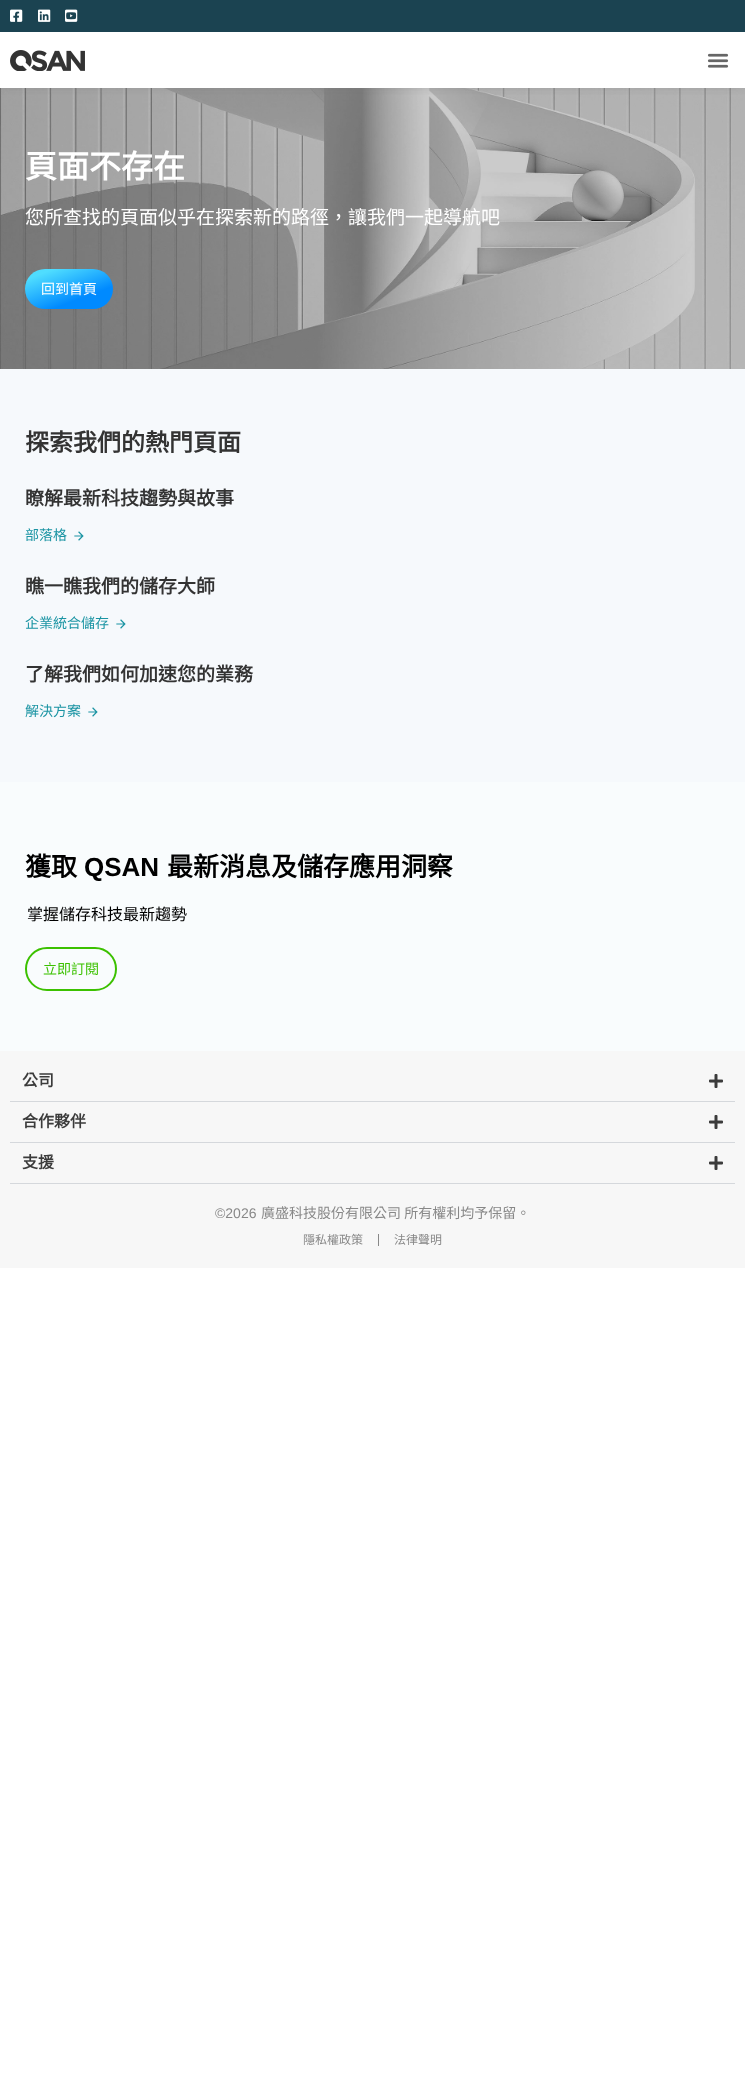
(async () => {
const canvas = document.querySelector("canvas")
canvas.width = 745
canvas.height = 2094
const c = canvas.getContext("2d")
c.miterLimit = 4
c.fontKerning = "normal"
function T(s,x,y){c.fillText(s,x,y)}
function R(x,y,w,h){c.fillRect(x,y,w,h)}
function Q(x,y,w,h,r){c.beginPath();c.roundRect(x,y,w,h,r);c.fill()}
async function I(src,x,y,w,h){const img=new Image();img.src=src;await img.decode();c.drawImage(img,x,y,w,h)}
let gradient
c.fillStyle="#fff"
R(0,0,745,2094)
await I("6.png",0,88,745,281)
c.save()
c.beginPath()
c.rect(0,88,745,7)
c.clip()
c.fillStyle="#7f7f7f4d"
c.filter="blur(5px)"
c.beginPath()
c.rect(0,32,745,56)
c.fill()
c.filter="none"
c.restore()
c.fillStyle="#1b4351"
R(0,0,745,32)
await I("1.png",10,9,13,13)
await I("2.png",38,9,13,13)
await I("3.png",65,9,13,13)
await I("4.png",10,50,75,21)
await I("5.png",707,53,22,15)
c.font="bold 32px Noto Sans CJK TC"
c.fillStyle="#fff"
T("頁面不存在",25,178)
c.font="19px Noto Sans CJK TC"
T("您所查找的頁面似乎在探索新的路徑，讓我們一起導航吧",25,224)
gradient = c.createLinearGradient(57,257,81,321)
gradient.addColorStop(.15,"#4fddff")
gradient.addColorStop(.69,"#008aff")
c.fillStyle = gradient
Q(25,269,88,40,20)
c.font="14px Noto Sans CJK TC"
c.fillStyle="#fff"
T("回到首頁",41,294)
c.fillStyle="#f6f9fc"
R(0,369,745,413)
c.font="bold 24px Noto Sans CJK TC"
c.fillStyle="#333"
T("探索我們的熱門頁面",25,451)
c.font="bold 19px Noto Sans CJK TC"
T("瞭解最新科技趨勢與故事",25,505)
c.font="14px Noto Sans CJK TC"
c.fillStyle="#1a94a3"
T("部落格",25,540)
await I("7.png",74,531,10,10)
c.font="bold 19px Noto Sans CJK TC"
c.fillStyle="#333"
T("瞧一瞧我們的儲存大師",25,593)
c.font="14px Noto Sans CJK TC"
c.fillStyle="#1a94a3"
T("企業統合儲存",25,628)
await I("7.png",116,619,10,10)
c.font="bold 19px Noto Sans CJK TC"
c.fillStyle="#333"
T("了解我們如何加速您的業務",25,681)
c.font="14px Noto Sans CJK TC"
c.fillStyle="#1a94a3"
T("解決方案",25,716)
await I("7.png",88,707,10,10)
c.fillStyle="#f9fcfd"
R(0,782,745,269)
c.font="bold 26px Noto Sans CJK TC"
c.fillStyle="#000"
T("獲取",25,876)
c.font="bold 26px Liberation Sans"
T("QSAN",84,876)
c.font="bold 26px Noto Sans CJK TC"
T("最新消息及儲存應用洞察",167,876)
c.font="16px Noto Sans CJK TC"
T("掌握儲存科技最新趨勢",27,920)
c.beginPath()
c.roundRect(26,948,90,42,21)
c.strokeStyle="#3cc100"
c.lineWidth=2
c.stroke()
c.font="14px Noto Sans CJK TC"
c.fillStyle="#3cc100"
T("立即訂閱",43,974)
c.fillStyle="#f7f7f7"
R(0,1051,745,217)
c.fillStyle="#d5d8dc"
R(10,1101,725,1)
c.font="bold 16px Noto Sans CJK TC"
c.fillStyle="#3b3b3b"
T("公司",22,1086)
await I("8.png",709,1074,14,14)
c.fillStyle="#d5d8dc"
R(10,1142,725,1)
c.fillStyle="#3b3b3b"
T("合作夥伴",22,1127)
await I("8.png",709,1115,14,14)
c.fillStyle="#d5d8dc"
R(10,1183,725,1)
c.fillStyle="#3b3b3b"
T("支援",22,1168)
await I("8.png",709,1156,14,14)
c.font="14px Liberation Sans"
c.fillStyle="#888"
T("©2026",215,1218)
c.font="14px Noto Sans CJK TC"
T("廣盛科技股份有限公司 所有權利均予保留。",261,1218)
c.font="12px Noto Sans CJK TC"
T("隱私權政策",303,1244)
R(378,1234,1,12)
T("法律聲明",394,1244)
})()
